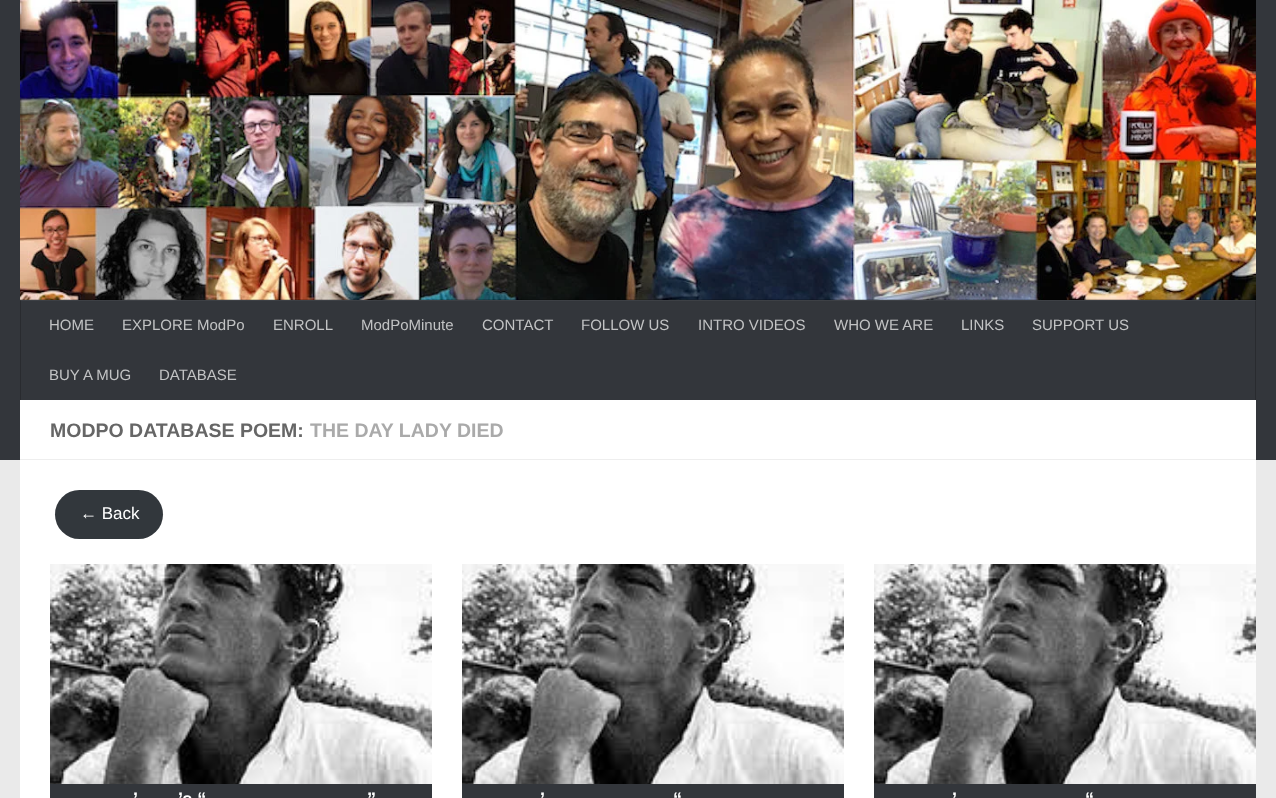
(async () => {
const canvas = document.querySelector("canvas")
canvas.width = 1276
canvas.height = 798
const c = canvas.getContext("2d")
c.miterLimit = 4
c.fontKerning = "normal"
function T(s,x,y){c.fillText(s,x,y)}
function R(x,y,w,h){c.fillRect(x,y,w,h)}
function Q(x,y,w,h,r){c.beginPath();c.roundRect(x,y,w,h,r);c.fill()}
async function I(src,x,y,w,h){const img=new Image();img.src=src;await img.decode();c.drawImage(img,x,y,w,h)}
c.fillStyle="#eaeaea"
R(0,0,1276,798)
c.fillStyle="#33363b"
R(0,0,1276,460)
c.fillStyle="#3d4045"
R(20,300,1236,1)
await I("1.png",20,0,1236,300)
c.fillStyle="#00000033"
R(20,299,1236,1)
c.fillStyle="#292b2f"
R(1255,300,1,100)
c.fillStyle="#343639"
R(1255,300,1,1)
c.fillStyle="#292b2f"
R(20,300,1,100)
c.fillStyle="#343639"
R(20,300,1,1)
c.font="15px Liberation Sans"
c.fillStyle="#c2c3c4"
T("HOME",49,330)
T("EXPLORE ModPo",122,330)
T("ENROLL",273,330)
T("ModPoMinute",361,330)
T("CONTACT",482,330)
T("FOLLOW US",581,330)
T("INTRO VIDEOS",698,330)
T("WHO WE ARE",834,330)
T("LINKS",961,330)
T("SUPPORT US",1032,330)
T("BUY A MUG",49,380)
T("DATABASE",159,380)
c.fillStyle="#fff"
R(20,400,1236,398)
c.fillStyle="#eee"
R(20,459,1236,1)
c.font="bold 19.5px Liberation Sans"
c.fillStyle="#666"
T("MODPO DATABASE POEM:",50,437)
c.fillStyle="#aaa"
T("THE DAY LADY DIED",310,437)
c.fillStyle="#32373c"
Q(55,490,108,49,24.5)
c.font="17px Liberation Sans"
c.fillStyle="#fff"
T("← Back",80,519)
c.fillStyle="#33363b"
R(50,784,382,14)
await I("2.png",50,564,382,220)
c.font="bold 18px Liberation Sans"
c.fillStyle="#fff"
T("’",133,805)
T("’s “",178,805)
T("”",367,805)
c.fillStyle="#33363b"
R(462,784,382,14)
await I("2.png",462,564,382,220)
c.fillStyle="#fff"
T("’",540,805)
T("“",673,805)
c.fillStyle="#33363b"
R(874,784,382,14)
await I("2.png",874,564,382,220)
c.fillStyle="#fff"
T("’",952,805)
T("“",1085,805)
})()
